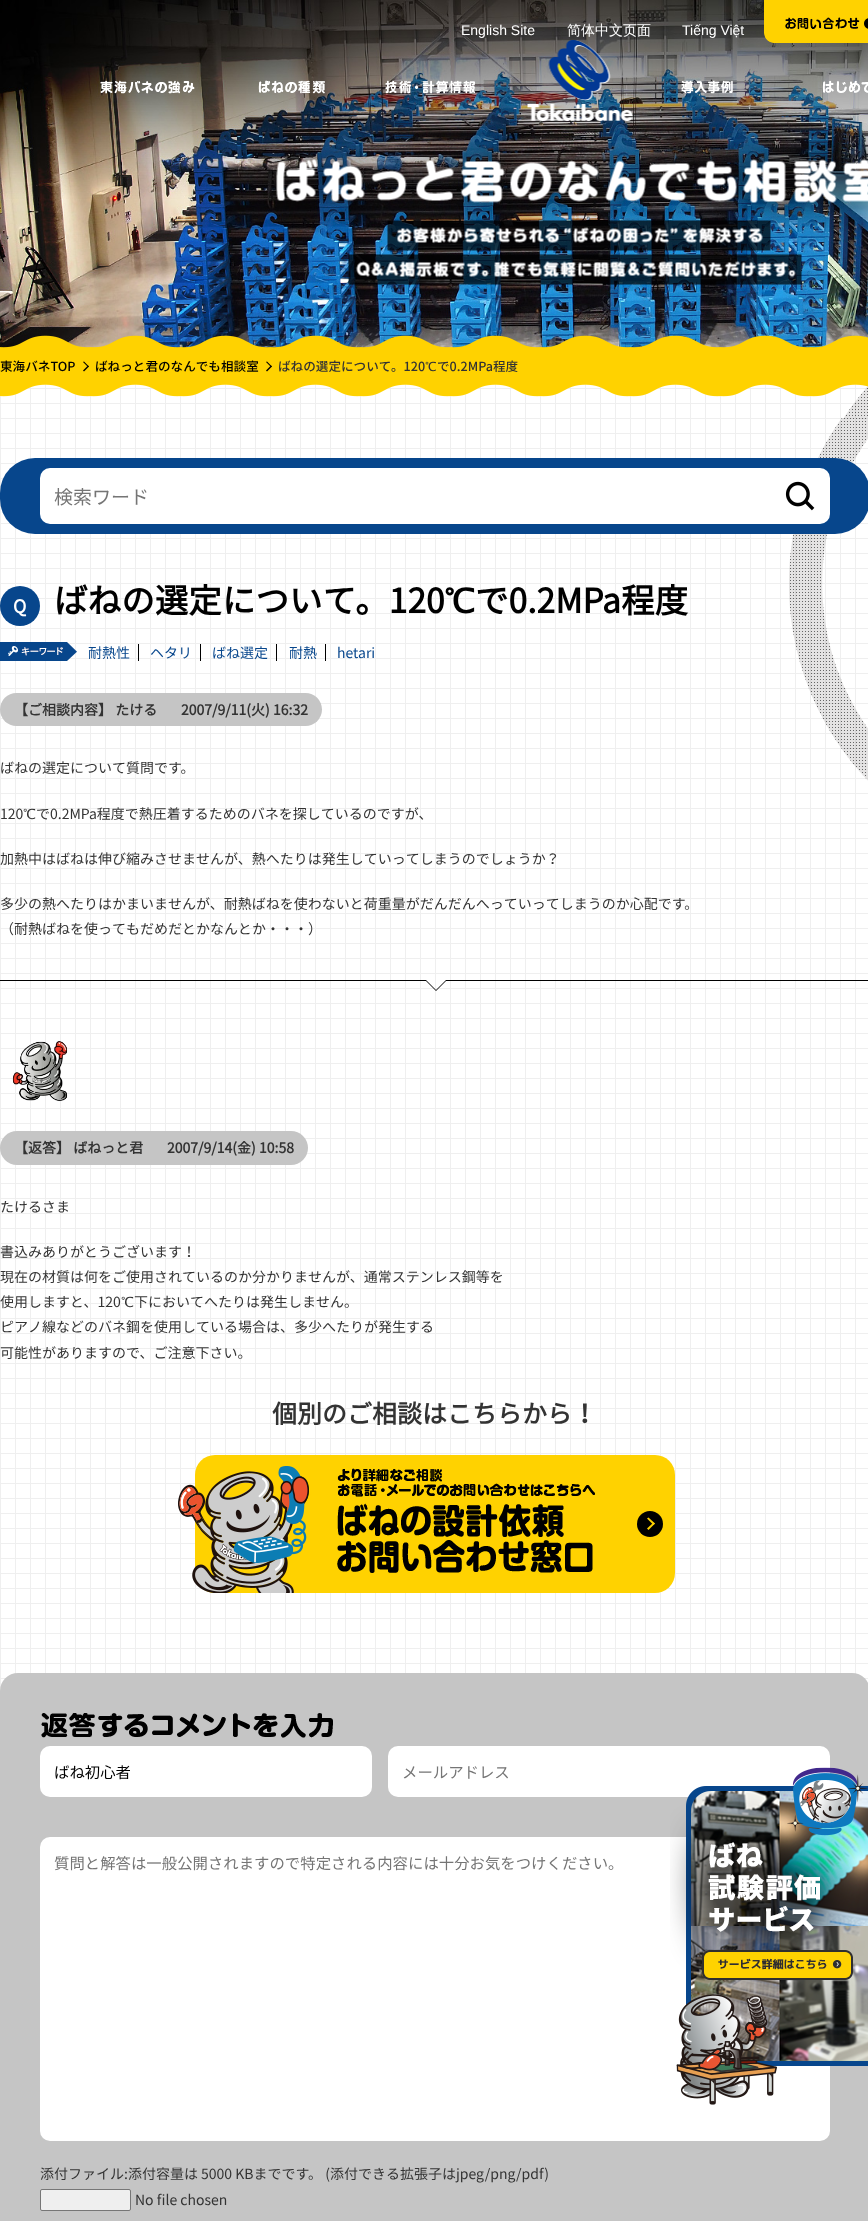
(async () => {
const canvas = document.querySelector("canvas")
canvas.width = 868
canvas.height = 2221
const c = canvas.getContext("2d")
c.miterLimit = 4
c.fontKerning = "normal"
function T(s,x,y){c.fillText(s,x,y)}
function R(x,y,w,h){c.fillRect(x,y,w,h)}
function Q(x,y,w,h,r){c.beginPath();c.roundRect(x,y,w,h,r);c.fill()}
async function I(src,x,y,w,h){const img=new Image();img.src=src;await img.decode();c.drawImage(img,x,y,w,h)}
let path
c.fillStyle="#fff"
R(0,0,868,2221)
await I("8.png",0,0,868,348)
c.font="14px Liberation Sans"
T("English Site",461,35)
c.font="500 14px WenQuanYi Zen Hei"
T("简体中文页面",567,35)
c.font="14px Liberation Sans"
T("Tiếng Việt",682,35)
await I("1.png",764,0,104,43)
await I("2.png",527,40,106,81)
await I("3.png",100,80,95,14)
await I("4.png",258,80,67,14)
await I("5.png",385,80,90,14)
await I("6.png",681,80,52,14)
await I("7.png",822,80,46,13)
await I("9.png",241,123,627,162)
await I("10.png",0,335,868,15)
c.fillStyle="#ffd200"
R(0,350,868,47)
c.font="500 12.6px Noto Sans JP"
c.fillStyle="#000"
T("東海バネTOP",0,371)
path = new Path2D("M84 361.5l5 5l-1 .5l-5-5z")
c.fill(path)
path = new Path2D("M88 365.5l1 1l-5 5l-1-1z")
c.fill(path)
T("ばねっと君のなんでも相談室",95,371)
path = new Path2D("M267 361.5l5 5l-1 .5l-5-5z")
c.fill(path)
path = new Path2D("M271 365.5l1 1l-5 5l-1-1z")
c.fill(path)
c.fillStyle="#333"
T("ばねの選定について。120",278,371)
c.font="500 12.6px WenQuanYi Zen Hei"
T("℃",425,371)
c.font="500 12.6px Noto Sans JP"
T("で0.2MPa程度",437,371)
await I("11.png",0,384,868,34)
await I("12.png",844,386,24,32)
await I("13.png",0,418,868,1273)
await I("21.png",789,418,79,363)
c.fillStyle="#07468c"
Q(0,458,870,76,35)
c.fillStyle="#fff"
Q(40,468,790,56,10)
await I("14.png",785,481,30,30)
c.font="19px Noto Sans JP"
c.fillStyle="#757575"
T("検索ワード",54,504)
c.fillStyle="#07468c"
c.beginPath()
c.arc(20,606,20,0,7)
c.fill()
c.font="bold 18px Noto Sans JP"
c.fillStyle="#fff"
T("Q",13,613)
c.font="bold 33.6px Noto Sans JP"
c.fillStyle="#000"
T("ばねの選定について。120",54,613)
c.font="bold 33.6px WenQuanYi Zen Hei"
T("℃",444,613)
c.font="bold 33.6px Noto Sans JP"
T("で0.2MPa程度",475,613)
await I("15.png",0,642,77,19)
R(138,644,1,17)
c.font="14px Noto Sans JP"
c.fillStyle="#07468c"
T("耐熱性",88,658)
c.fillStyle="#000"
R(200,644,1,17)
c.fillStyle="#07468c"
T("ヘタリ",150,658)
c.fillStyle="#000"
R(276,644,1,17)
c.fillStyle="#07468c"
T("ばね選定",212,658)
c.fillStyle="#000"
R(325,644,1,17)
c.fillStyle="#07468c"
T("耐熱",289,658)
T("hetari",337,658)
c.fillStyle="#c5c5c5"
Q(0,693,322,33,16.5)
c.font="bold 14px Noto Sans JP"
c.fillStyle="#333"
T("【ご相談内容】 たける",14,715)
T("2007/9/11(火) 16:32",181,715)
c.font="14px Noto Sans JP"
T("ばねの選定について質問です。",0,773)
T("120",0,819)
c.font="500 14px WenQuanYi Zen Hei"
T("℃",23,819)
c.font="14px Noto Sans JP"
T("で0.2MPa程度で熱圧着するためのバネを探しているのですが、",36,819)
T("加熱中はばねは伸び縮みさせませんが、熱へたりは発生していってしまうのでしょうか？",0,864)
T("多少の熱へたりはかまいませんが、耐熱ばねを使わないと荷重量がだんだんへっていってしまうのか心配です。",0,909)
T("（耐熱ばねを使ってもだめだとかなんとか・・・）",0,934)
await I("16.png",0,980,868,11)
await I("17.png",12,1041,56,61)
c.fillStyle="#c5c5c5"
Q(0,1131,308,34,17)
c.font="bold 14px Noto Sans JP"
c.fillStyle="#333"
T("【返答】 ばねっと君",14,1153)
T("2007/9/14(金) 10:58",167,1153)
c.font="14px Noto Sans JP"
T("たけるさま",0,1212)
T("書込みありがとうございます！",0,1257)
T("現在の材質は何をご使用されているのか分かりませんが、通常ステンレス鋼等を",0,1282)
T("使用しますと、120",0,1307)
c.font="500 14px WenQuanYi Zen Hei"
T("℃",121,1307)
c.font="14px Noto Sans JP"
T("下においてへたりは発生しません。",134,1307)
T("ピアノ線などのバネ鋼を使用している場合は、多少へたりが発生する",0,1332)
T("可能性がありますので、ご注意下さい。",0,1358)
c.fillStyle="#ffd200"
Q(195,1455,480,138,20)
c.font="bold 25px Noto Sans JP"
c.fillStyle="#333"
T("個別のご相談はこちらから！",272,1423)
await I("18.png",178,1466,131,127)
await I("19.png",337,1468,258,105)
c.fillStyle="#000"
c.beginPath()
c.arc(650,1524,13,0,7)
c.fill()
c.fillStyle="#ffd200"
path = new Path2D("M648.5 1517.5l6.5 6l-1.5 1.5l-6.5-6.5z")
c.fill(path)
path = new Path2D("M653.5 1522.5l1.5 1l-6.5 6.5l-1.5-1.5z")
c.fill(path)
c.fillStyle="#c5c5c5"
Q(0,1673,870,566,18)
await I("20.png",41,1713,292,25)
c.fillStyle="#fff"
Q(40,1746,332,51,10)
c.font="15.4px Noto Sans JP"
c.fillStyle="#000"
T("ばね初心者",54,1778)
c.fillStyle="#fff"
Q(388,1746,442,51,10)
c.fillStyle="#757575"
T("メールアドレス",402,1778)
c.fillStyle="#fff"
Q(40,1837,790,304,10)
c.fillStyle="#757575"
T("質問と解答は一般公開されますので特定される内容には十分お気をつけください。",54,1869)
c.font="14px Noto Sans JP"
c.fillStyle="#333"
T("添付ファイル:添付容量は 5000 KBまでです。 (添付できる拡張子はjpeg/png/pdf)",40,2179)
c.fillStyle="#efefef"
c.beginPath()
c.roundRect(40.5,2189.5,90,21,1.5)
c.fill()
c.strokeStyle="#767676"
c.stroke()
c.fillStyle="#333"
T("No file chosen",135,2205)
await I("23.png",670,1786,198,280)
await I("22.png",787,1767,81,69)
await I("24.png",676,1994,101,111)
})()
